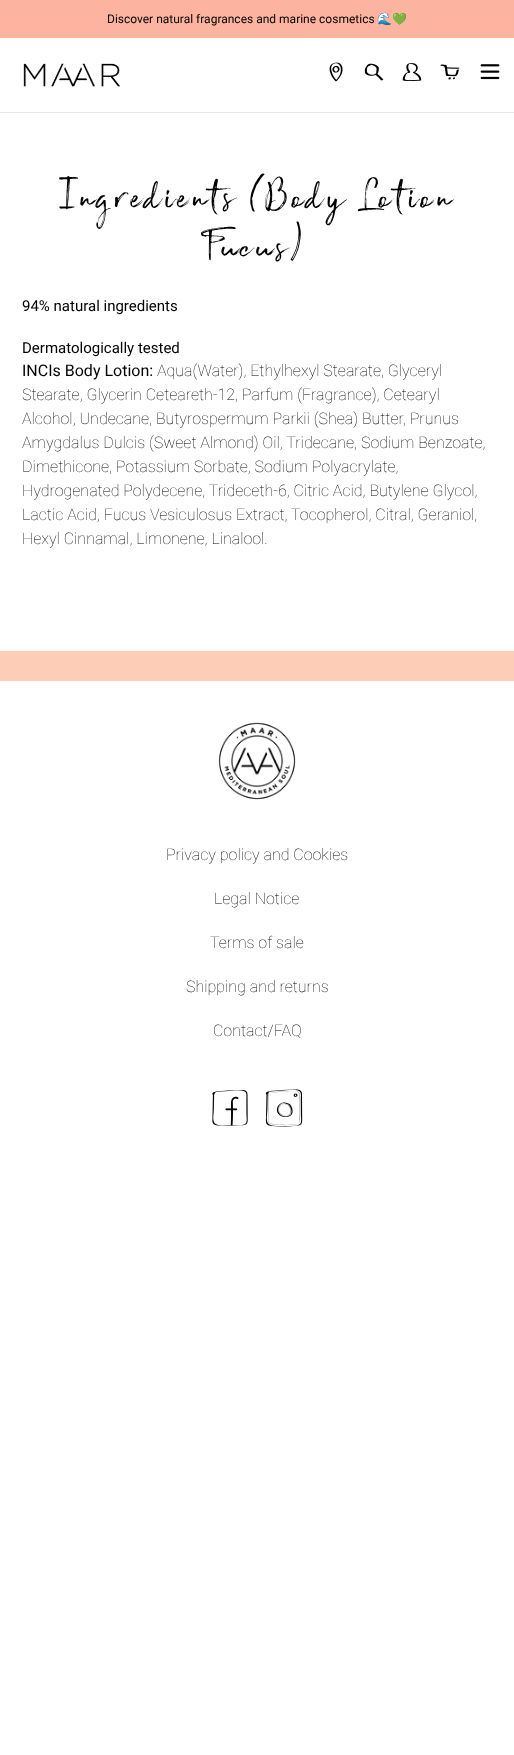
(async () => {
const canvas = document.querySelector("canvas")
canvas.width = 514
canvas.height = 1755
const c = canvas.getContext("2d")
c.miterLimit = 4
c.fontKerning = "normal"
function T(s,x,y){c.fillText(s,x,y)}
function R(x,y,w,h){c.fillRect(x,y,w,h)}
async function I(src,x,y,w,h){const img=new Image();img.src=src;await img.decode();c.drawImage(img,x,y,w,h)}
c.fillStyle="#fff"
R(0,0,514,1755)
c.fillStyle="#fcb3a0"
R(0,0,514,38)
c.font="12px Roboto"
c.fillStyle="#000"
T("Discover natural fragrances and marine cosmetics",107,23)
c.font="12px Noto Color Emoji"
T("🌊💚",377,23)
c.fillStyle="#e8e9eb"
R(0,112,514,1)
await I("1.png",23,63,98,24)
await I("2.png",329,62,14,20)
await I("3.png",364,63,20,18)
await I("4.png",402,63,20,18)
await I("5.png",440,64,20,16)
await I("6.png",480,64,20,16)
c.letterSpacing="3px"
c.font="50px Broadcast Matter"
c.fillStyle="#000"
T("Ingredients (Body Lotion",60,207)
T("Fucus)",206,257)
c.letterSpacing="0px"
c.font="15px Roboto"
T("94% natural ingredients",22,311)
T("Dermatologically tested",22,353)
c.font="16px Roboto"
T("INCIs Body Lotion:",22,376)
c.font="100 16px Roboto"
T("Aqua(Water), Ethylhexyl Stearate, Glyceryl",157,376)
T("Stearate, Glycerin Ceteareth-12, Parfum (Fragrance), Cetearyl",22,400)
T("Alcohol, Undecane, Butyrospermum Parkii (Shea) Butter, Prunus",22,424)
T("Amygdalus Dulcis (Sweet Almond) Oil, Tridecane, Sodium Benzoate,",22,448)
T("Dimethicone, Potassium Sorbate, Sodium Polyacrylate,",22,472)
T("Hydrogenated Polydecene, Trideceth-6, Citric Acid, Butylene Glycol,",22,496)
T("Lactic Acid, Fucus Vesiculosus Extract, Tocopherol, Citral, Geraniol,",22,520)
T("Hexyl Cinnamal, Limonene, Linalool.",22,544)
c.fillStyle="#fdcdb8"
R(0,651,514,30)
await I("7.png",218,722,78,78)
c.fillStyle="#000"
T("Privacy policy and Cookies",166,860)
T("Legal Notice",214,904)
T("Terms of sale",210,948)
T("Shipping and returns",186,992)
T("Contact/FAQ",213,1036)
await I("8.png",212,1089,36,37)
await I("9.png",265,1089,38,38)
})()
